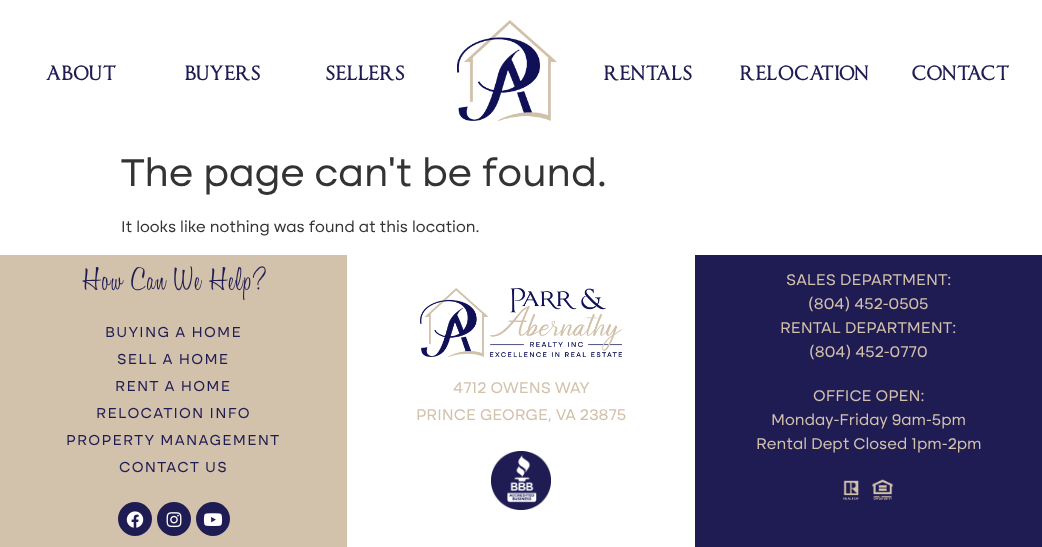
(async () => {
const canvas = document.querySelector("canvas")
canvas.width = 1042
canvas.height = 547
const c = canvas.getContext("2d")
c.miterLimit = 4
c.fontKerning = "normal"
function T(s,x,y){c.fillText(s,x,y)}
function R(x,y,w,h){c.fillRect(x,y,w,h)}
async function I(src,x,y,w,h){const img=new Image();img.src=src;await img.decode();c.drawImage(img,x,y,w,h)}
c.fillStyle="#fff"
R(0,0,1042,547)
c.letterSpacing="1.25px"
c.font="bold 17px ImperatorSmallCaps"
c.fillStyle="#1f1b53"
T("ABOUT",46,80)
T("BUYERS",185,80)
T("SELLERS",326,80)
await I("1.png",457,20,100,101)
T("RENTALS",604,80)
T("RELOCATION",740,80)
T("CONTACT",912,80)
c.letterSpacing="0px"
c.font="40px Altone"
c.fillStyle="#333"
T("The page can’t be found.",121,186)
c.font="16px Altone"
T("It looks like nothing was found at this location.",121,232)
c.fillStyle="#d2c1ab"
R(0,255,347,292)
c.letterSpacing="1.25px"
c.wordSpacing="0.5px"
c.font="300 35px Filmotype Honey"
c.fillStyle="#1f1b53"
T("How Can We Help?",82,289)
c.wordSpacing="0px"
c.font="15px Altone"
T("BUYING A HOME",105,337)
T("SELL A HOME",117,364)
T("RENT A HOME",115,391)
T("RELOCATION INFO",96,418)
T("PROPERTY MANAGEMENT",66,445)
T("CONTACT US",119,472)
c.beginPath()
c.arc(135,519,17,0,7)
c.fill()
await I("2.png",126,511,18,17)
c.beginPath()
c.arc(174,519,17,0,7)
c.fill()
await I("3.png",166,512,16,16)
c.beginPath()
c.arc(213,519,17,0,7)
c.fill()
await I("4.png",203,513,20,13)
await I("5.png",420,288,202,69)
c.letterSpacing="0px"
c.font="16px Altone"
c.fillStyle="#d2c1ab"
T("4712 OWENS WAY",453,393)
T("PRINCE GEORGE, VA 23875",416,420)
await I("6.png",491,451,60,59)
c.fillStyle="#1f1b53"
R(695,255,347,292)
c.fillStyle="#d2c1ab"
T("SALES DEPARTMENT:",786,285)
T("(804) 452-0505",808,309)
T("RENTAL DEPARTMENT:",780,333)
T("(804) 452-0770",809,357)
T("OFFICE OPEN:",813,401)
T("Monday-Friday 9am-5pm",771,425)
T("Rental Dept Closed 1pm-2pm",756,449)
await I("7.png",843,479,51,21)
})()
